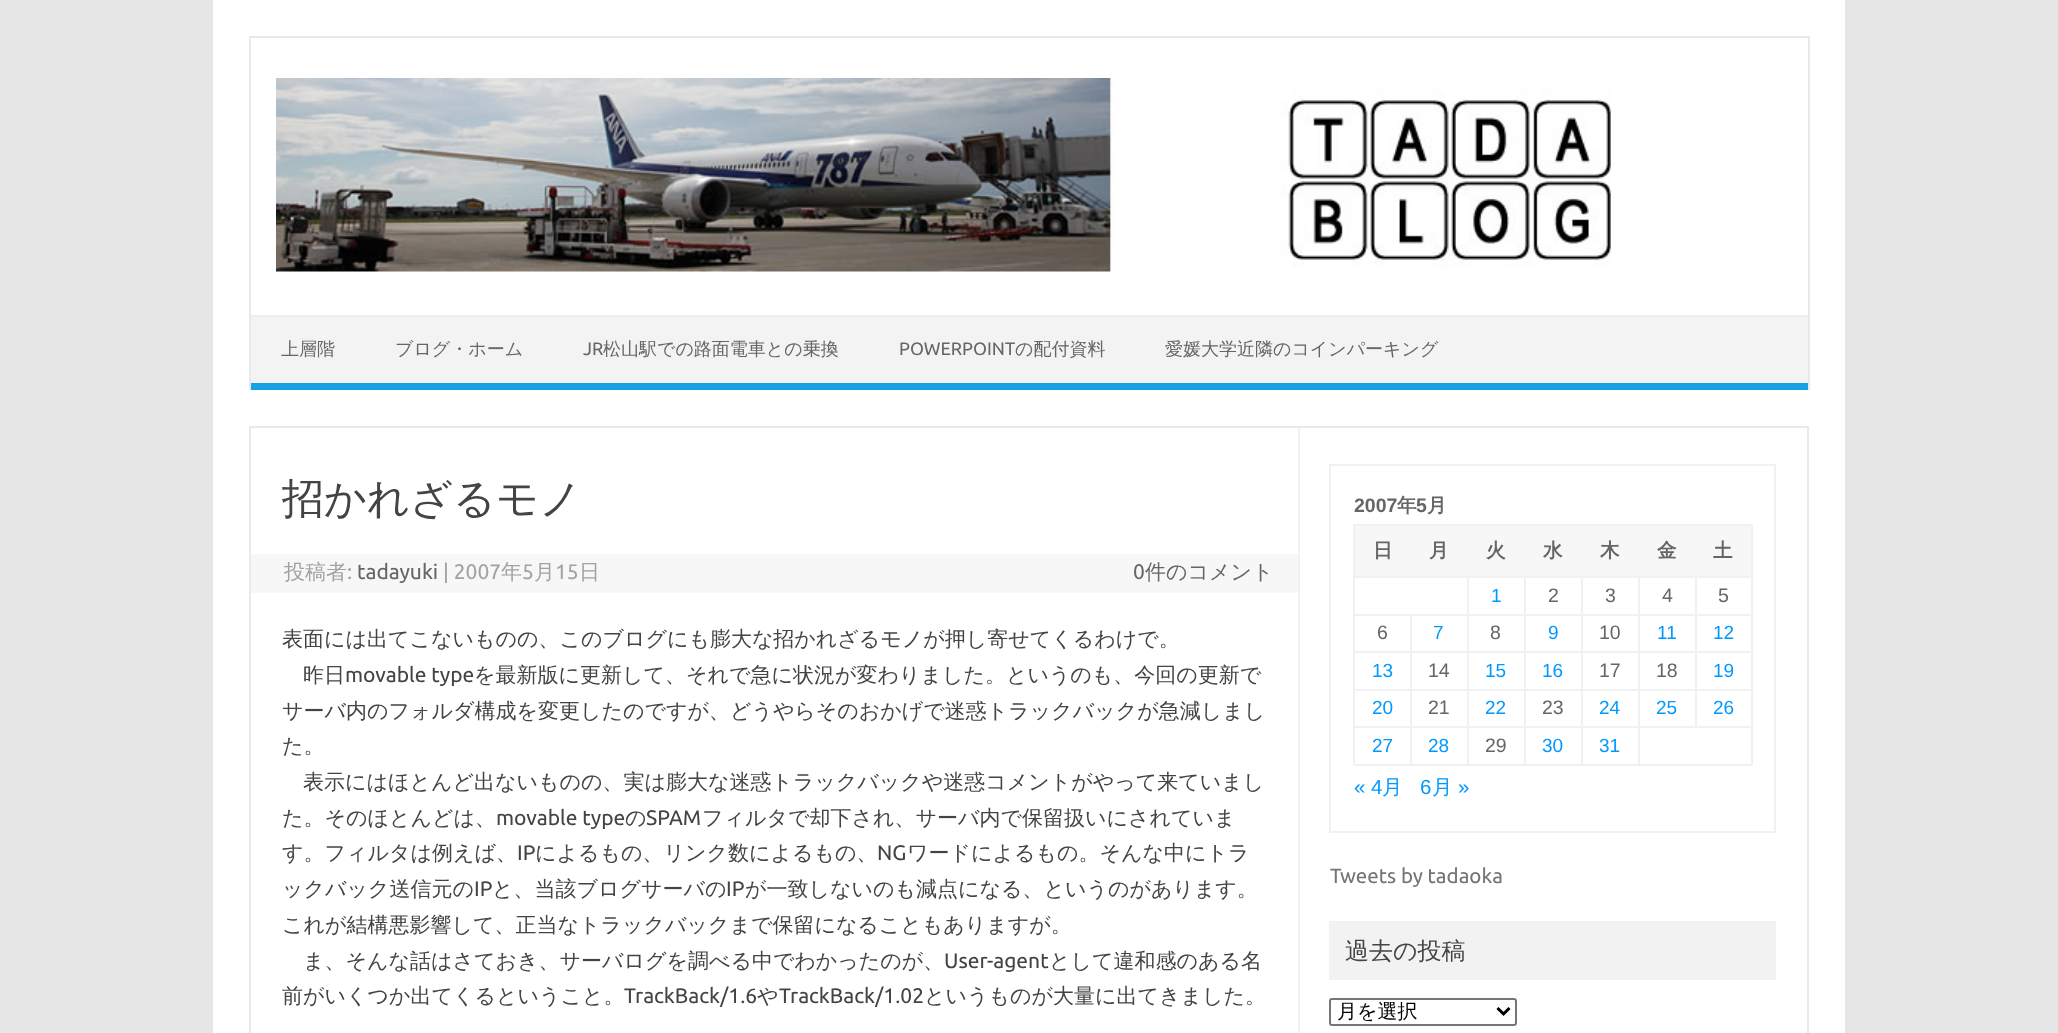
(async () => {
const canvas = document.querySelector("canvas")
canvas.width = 2058
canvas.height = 1033
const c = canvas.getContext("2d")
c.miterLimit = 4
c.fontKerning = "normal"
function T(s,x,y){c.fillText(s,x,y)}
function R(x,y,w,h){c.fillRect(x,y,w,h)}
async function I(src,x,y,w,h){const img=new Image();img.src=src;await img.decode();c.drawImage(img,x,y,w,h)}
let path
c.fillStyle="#e6e6e6"
R(0,0,2058,1033)
c.fillStyle="#fff"
R(213,0,1632,1033)
c.fillStyle="#e9e9e9"
R(249,36,1560,2)
R(1808,36,2,354)
R(249,36,2,354)
await I("1.png",276,78,1335,194)
c.fillStyle="#f3f3f3"
R(251,317,1557,66)
c.fillStyle="#ededed"
R(251,315,1557,2)
c.fillStyle="#16a1e7"
R(251,383,1557,7)
c.font="500 18px WenQuanYi Zen Hei"
c.fillStyle="#666"
T("上層階",281,355)
T("ブログ・ホーム",395,355)
c.font="18px Ubuntu"
T("JR",583,355)
c.font="500 18px WenQuanYi Zen Hei"
T("松山駅での路面電車との乗換",603,355)
c.font="18px Ubuntu"
T("POWERPOINT",899,355)
c.font="500 18px WenQuanYi Zen Hei"
T("の配付資料",1015,355)
T("愛媛大学近隣のコインパーキング",1165,355)
c.strokeStyle="#e9e9e9"
c.lineWidth=2
c.strokeRect(250,427,1558,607)
c.fillStyle="#f1f1f1"
R(1298,428,2,605)
c.font="500 42px WenQuanYi Zen Hei"
c.fillStyle="#444"
T("招かれざるモノ",282,513)
c.fillStyle="#f7f7f7"
R(251,554,1047,39)
c.font="500 21px WenQuanYi Zen Hei"
c.fillStyle="#a2a2a2"
T("投稿者",284,579)
c.font="21px Ubuntu"
T(":",347,579)
c.fillStyle="#666"
T("tadayuki",357,579)
c.fillStyle="#a2a2a2"
T("| 2007",443,579)
c.font="500 21px WenQuanYi Zen Hei"
T("年",501,579)
c.font="21px Ubuntu"
T("5",522,579)
c.font="500 21px WenQuanYi Zen Hei"
T("月",534,579)
c.font="21px Ubuntu"
T("15",555,579)
c.font="500 21px WenQuanYi Zen Hei"
T("日",579,579)
c.font="21px Ubuntu"
c.fillStyle="#666"
T("0",1133,579)
c.font="500 21px WenQuanYi Zen Hei"
T("件のコメント",1145,579)
c.fillStyle="#444"
T("表面には出てこないものの、このブログにも膨大な招かれざるモノが押し寄せてくるわけで。",282,646)
T("昨日",303,682)
c.font="21px Ubuntu"
T("movable type",345,682)
c.font="500 21px WenQuanYi Zen Hei"
T("を最新版に更新して、それで急に状況が変わりました。というのも、今回の更新で",474,682)
T("サーバ内のフォルダ構成を変更したのですが、どうやらそのおかげで迷惑トラックバックが急減しまし",282,718)
T("た。",282,753)
T("表示にはほとんど出ないものの、実は膨大な迷惑トラックバックや迷惑コメントがやって来ていまし",303,789)
T("た。そのほとんどは、",282,825)
c.font="21px Ubuntu"
T("movable type",496,825)
c.font="500 21px WenQuanYi Zen Hei"
T("の",625,825)
c.font="21px Ubuntu"
T("SPAM",646,825)
c.font="500 21px WenQuanYi Zen Hei"
T("フィルタで却下され、サーバ内で保留扱いにされていま",702,825)
T("す。フィルタは例えば、",282,860)
c.font="21px Ubuntu"
T("IP",517,860)
c.font="500 21px WenQuanYi Zen Hei"
T("によるもの、リンク数によるもの、",535,860)
c.font="21px Ubuntu"
T("NG",877,860)
c.font="500 21px WenQuanYi Zen Hei"
T("ワードによるもの。そんな中にトラ",907,860)
T("ックバック送信元の",282,896)
c.font="21px Ubuntu"
T("IP",474,896)
c.font="500 21px WenQuanYi Zen Hei"
T("と、当該ブログサーバの",492,896)
c.font="21px Ubuntu"
T("IP",726,896)
c.font="500 21px WenQuanYi Zen Hei"
T("が一致しないのも減点になる、というのがあります。",745,896)
T("これが結構悪影響して、正当なトラックバックまで保留になることもありますが。",282,932)
T("ま、そんな話はさておき、サーバログを調べる中でわかったのが、",303,968)
c.font="21px Ubuntu"
T("User-agent",944,968)
c.font="500 21px WenQuanYi Zen Hei"
T("として違和感のある名",1049,968)
T("前がいくつか出てくるということ。",282,1003)
c.font="21px Ubuntu"
T("TrackBack/1.6",624,1003)
c.font="500 21px WenQuanYi Zen Hei"
T("や",757,1003)
c.font="21px Ubuntu"
T("TrackBack/1.02",779,1003)
c.font="500 21px WenQuanYi Zen Hei"
T("というものが大量に出てきました。",924,1003)
c.strokeStyle="#f1f1f1"
c.strokeRect(1330,465,445,367)
c.font="bold 19.5px Liberation Sans"
c.fillStyle="#666"
T("2007",1354,512)
c.font="bold 19.5px WenQuanYi Zen Hei"
T("年",1397,512)
c.font="bold 19.5px Liberation Sans"
T("5",1416,512)
c.font="bold 19.5px WenQuanYi Zen Hei"
T("月",1427,512)
c.fillStyle="#f7f7f7"
R(1355,526,396,50)
c.fillStyle="#f1f1f1"
R(1353,524,399,2)
R(1353,576,399,2)
R(1353,614,399,2)
R(1353,651,399,2)
R(1353,689,399,2)
R(1353,726,399,2)
R(1751,726,2,39)
R(1751,689,2,39)
R(1751,651,2,39)
R(1751,614,2,39)
R(1751,576,2,39)
R(1751,524,2,54)
R(1353,764,399,2)
R(1353,726,2,39)
R(1353,689,2,39)
R(1353,651,2,39)
R(1353,614,2,39)
R(1353,576,2,39)
R(1353,524,2,54)
c.fillStyle="#666"
T("日",1373,557)
T("月",1429,557)
T("火",1486,557)
T("水",1543,557)
T("木",1600,557)
T("金",1657,557)
T("土",1713,557)
c.font="19px Liberation Sans"
c.fillStyle="#09f"
T("1",1491,602)
c.font="19.5px Liberation Sans"
c.fillStyle="#666"
T("2",1548,602)
T("3",1605,602)
T("4",1662,602)
T("5",1718,602)
T("6",1377,639)
c.font="19px Liberation Sans"
c.fillStyle="#09f"
T("7",1433,639)
c.font="19.5px Liberation Sans"
c.fillStyle="#666"
T("8",1490,639)
c.font="19px Liberation Sans"
c.fillStyle="#09f"
T("9",1548,639)
c.font="19.5px Liberation Sans"
c.fillStyle="#666"
T("10",1599,639)
c.font="19px Liberation Sans"
c.fillStyle="#09f"
T("11",1657,639)
T("12",1713,639)
T("13",1372,677)
c.font="19.5px Liberation Sans"
c.fillStyle="#666"
T("14",1428,677)
c.font="19px Liberation Sans"
c.fillStyle="#09f"
T("15",1485,677)
T("16",1542,677)
c.font="19.5px Liberation Sans"
c.fillStyle="#666"
T("17",1599,677)
T("18",1656,677)
c.font="19px Liberation Sans"
c.fillStyle="#09f"
T("19",1713,677)
T("20",1372,714)
c.font="19.5px Liberation Sans"
c.fillStyle="#666"
T("21",1428,714)
c.font="19px Liberation Sans"
c.fillStyle="#09f"
T("22",1485,714)
c.font="19.5px Liberation Sans"
c.fillStyle="#666"
T("23",1542,714)
c.font="19px Liberation Sans"
c.fillStyle="#09f"
T("24",1599,714)
T("25",1656,714)
c.fillStyle="#f1f1f1"
R(1695,576,2,152)
c.fillStyle="#09f"
T("26",1713,714)
T("27",1372,752)
c.fillStyle="#f1f1f1"
R(1410,614,2,151)
c.fillStyle="#09f"
T("28",1428,752)
c.fillStyle="#f1f1f1"
R(1467,576,2,189)
c.font="19.5px Liberation Sans"
c.fillStyle="#666"
T("29",1485,752)
c.fillStyle="#f1f1f1"
R(1524,576,2,189)
c.font="19px Liberation Sans"
c.fillStyle="#09f"
T("30",1542,752)
c.fillStyle="#f1f1f1"
R(1581,576,2,189)
c.fillStyle="#09f"
T("31",1599,752)
c.fillStyle="#f1f1f1"
R(1638,576,2,189)
c.font="20.5px Liberation Sans"
c.fillStyle="#09f"
T("« 4",1354,794)
c.font="500 20.5px WenQuanYi Zen Hei"
T("月",1382,794)
c.font="20.5px Liberation Sans"
T("6",1420,794)
c.font="500 20.5px WenQuanYi Zen Hei"
T("月",1432,794)
c.font="20.5px Liberation Sans"
T("»",1458,794)
c.font="20.5px Ubuntu"
c.fillStyle="#757575"
T("Tweets by tadaoka",1330,883)
c.fillStyle="#f2f2f2"
R(1329,921,447,59)
c.font="500 24px WenQuanYi Zen Hei"
c.fillStyle="#444"
T("過去の投稿",1345,959)
c.beginPath()
c.roundRect(1330,999,186,26,2)
c.strokeStyle="#767676"
c.stroke()
path = new Path2D("M1497.5 1008l6 6l6-6")
c.strokeStyle="#000"
c.lineWidth=3
c.stroke(path)
c.font="500 20px WenQuanYi Zen Hei"
c.fillStyle="#000"
T("月を選択",1337,1018)
})()
